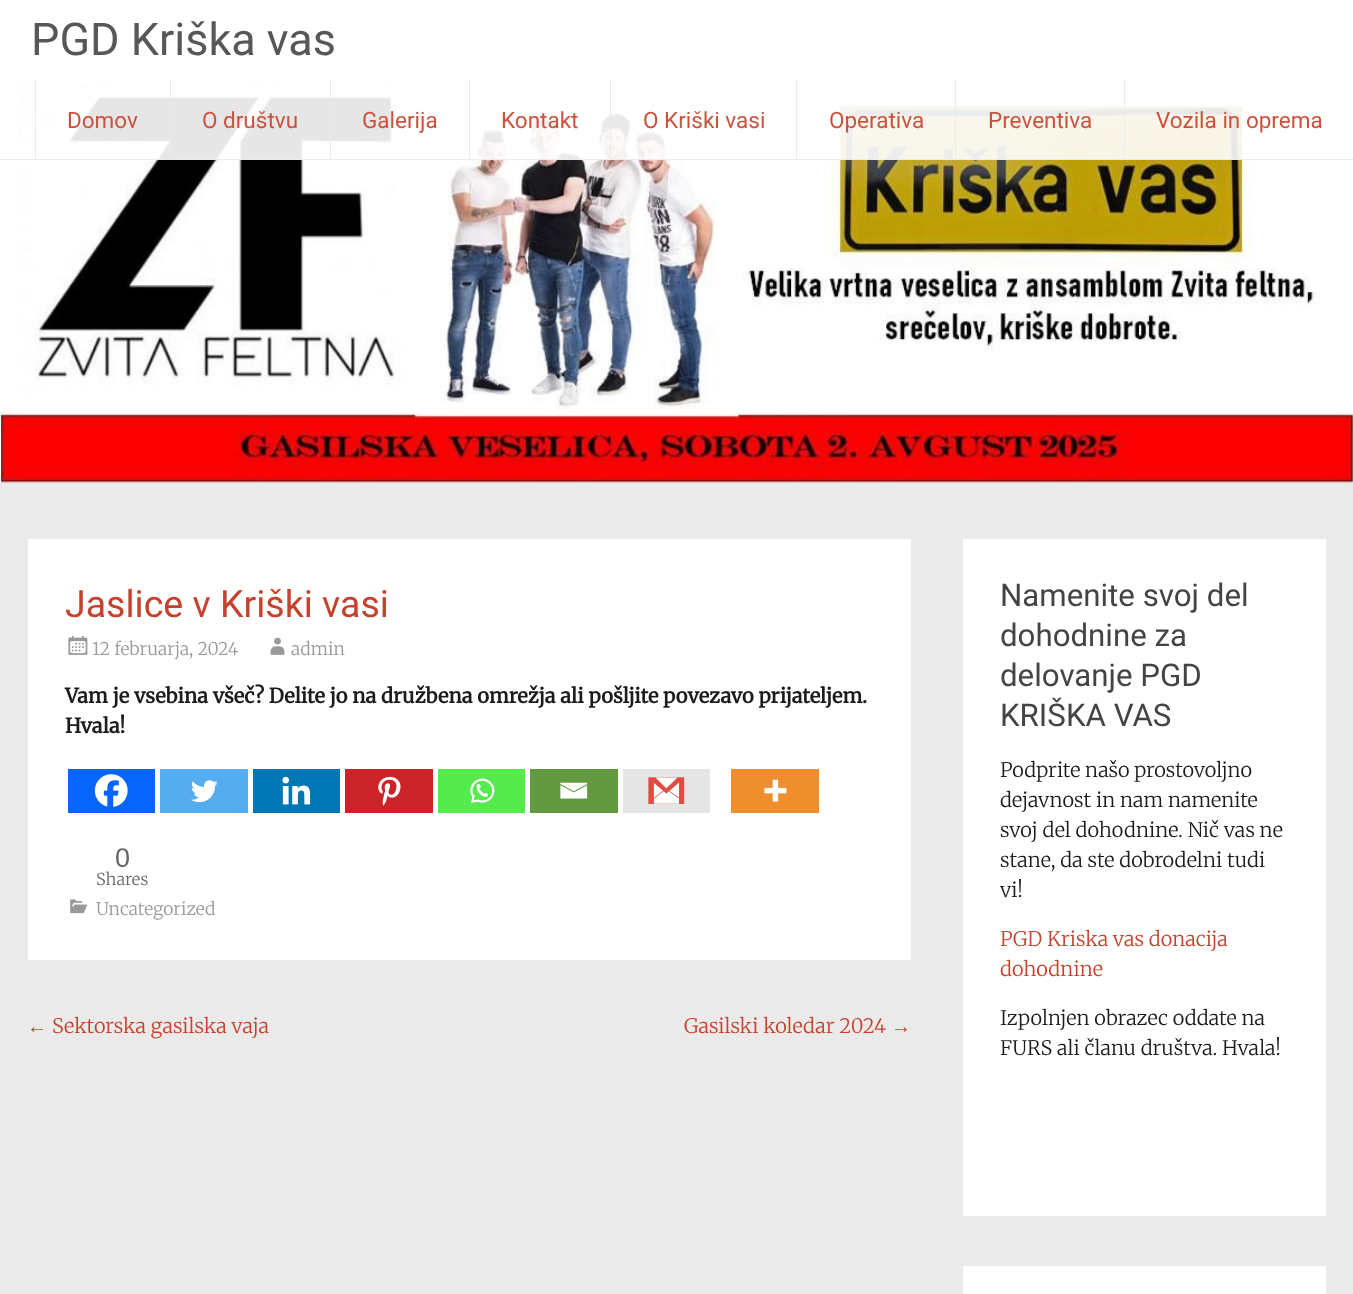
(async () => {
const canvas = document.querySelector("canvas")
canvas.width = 1353
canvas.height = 1294
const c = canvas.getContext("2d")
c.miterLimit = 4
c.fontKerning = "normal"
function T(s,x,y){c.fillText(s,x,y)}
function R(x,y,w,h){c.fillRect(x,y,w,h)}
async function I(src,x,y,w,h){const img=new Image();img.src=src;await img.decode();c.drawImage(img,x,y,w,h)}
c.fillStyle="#eaeaea"
R(0,0,1353,1294)
await I("1.png",0,0,1353,483)
c.fillStyle="#ffffffe6"
R(63,89,1192,71)
c.fillStyle="#eaeaeae6"
R(0,159,1353,1)
c.font="45px Roboto"
c.fillStyle="#575757"
T("PGD Kriška vas",31,55)
c.fillStyle="#ececec"
R(35,80,1,79)
c.font="22.5px Roboto"
c.fillStyle="#ca5340"
T("Domov",67,128)
c.fillStyle="#eaeaeae6"
R(170,80,1,79)
c.fillStyle="#ca5340"
T("O društvu",202,128)
c.fillStyle="#eaeaeae6"
R(330,80,1,79)
c.fillStyle="#ca5340"
T("Galerija",362,128)
c.fillStyle="#ececec"
R(469,80,1,79)
c.fillStyle="#ca5340"
T("Kontakt",501,128)
c.fillStyle="#eaeaeae6"
R(610,80,1,79)
c.fillStyle="#ca5340"
T("O Kriški vasi",643,128)
c.fillStyle="#ececec"
R(796,80,1,79)
c.fillStyle="#ca5340"
T("Operativa",829,128)
c.fillStyle="#eaeaeae6"
R(955,80,1,79)
c.fillStyle="#ca5340"
T("Preventiva",988,128)
c.fillStyle="#eaeaeae6"
R(1124,80,1,79)
c.fillStyle="#ca5340"
T("Vozila in oprema",1156,128)
c.fillStyle="#fff"
R(28,539,883,421)
c.font="37.5px Roboto"
c.fillStyle="#c6422d"
T("Jaslice v Kriški vasi",65,617)
await I("2.png",68,635,20,20)
c.font="300 17.5px Merriweather"
c.fillStyle="#999"
T("12 februarja, 2024",92,655)
await I("3.png",270,637,15,18)
T("admin",291,655)
c.font="bold 20px Merriweather"
c.fillStyle="#1c1c1c"
T("Vam je vsebina všeč? Delite jo na družbena omrežja ali pošljite povezavo prijateljem.",65,703)
T("Hvala!",65,733)
c.fillStyle="#0765fe"
R(68,769,87,44)
await I("4.png",94,774,34,33)
c.fillStyle="#55acee"
R(160,769,88,44)
await I("5.png",191,780,27,23)
c.fillStyle="#0077b5"
R(253,769,87,44)
await I("6.png",282,776,29,29)
c.fillStyle="#cc2329"
R(345,769,88,44)
await I("7.png",378,776,23,30)
c.fillStyle="#55eb4c"
R(438,769,87,44)
await I("8.png",470,778,25,25)
c.fillStyle="#649a3f"
R(530,769,88,44)
await I("9.png",560,782,28,17)
c.fillStyle="#e5e5e5"
R(623,769,87,44)
await I("10.png",648,777,37,27)
c.fillStyle="#ee8e2d"
R(731,769,88,44)
await I("11.png",764,779,23,23)
c.font="27px Liberation Sans"
c.fillStyle="#666"
T("0",115,867)
c.font="300 16.5px Merriweather"
T("Shares",96,885)
await I("12.png",70,899,18,15)
c.font="300 17.5px Merriweather"
c.fillStyle="#999"
T("Uncategorized",96,915)
c.font="20px Liberation Serif"
c.fillStyle="#c6422d"
T("←",27,1033)
c.font="300 20px Merriweather"
T("Sektorska gasilska vaja",52,1033)
T("Gasilski koledar 2024",684,1033)
c.font="20px Liberation Serif"
T("→",891,1033)
c.fillStyle="#fff"
R(963,539,363,677)
c.font="31.25px Roboto"
c.fillStyle="#444"
T("Namenite svoj del",1000,606)
T("dohodnine za",1000,646)
T("delovanje PGD",1000,686)
T("KRIŠKA VAS",1000,726)
c.font="300 20px Merriweather"
c.fillStyle="#1c1c1c"
T("Podprite našo prostovoljno",1000,777)
T("dejavnost in nam namenite",1000,807)
T("svoj del dohodnine. Nič vas ne",1000,837)
T("stane, da ste dobrodelni tudi",1000,867)
T("vi!",1000,897)
c.fillStyle="#c6422d"
T("PGD Kriska vas donacija",1000,946)
T("dohodnine",1000,976)
c.fillStyle="#1c1c1c"
T("Izpolnjen obrazec oddate na",1000,1025)
T("FURS ali članu društva. Hvala!",1000,1055)
c.fillStyle="#fff"
R(963,1266,363,28)
})()
